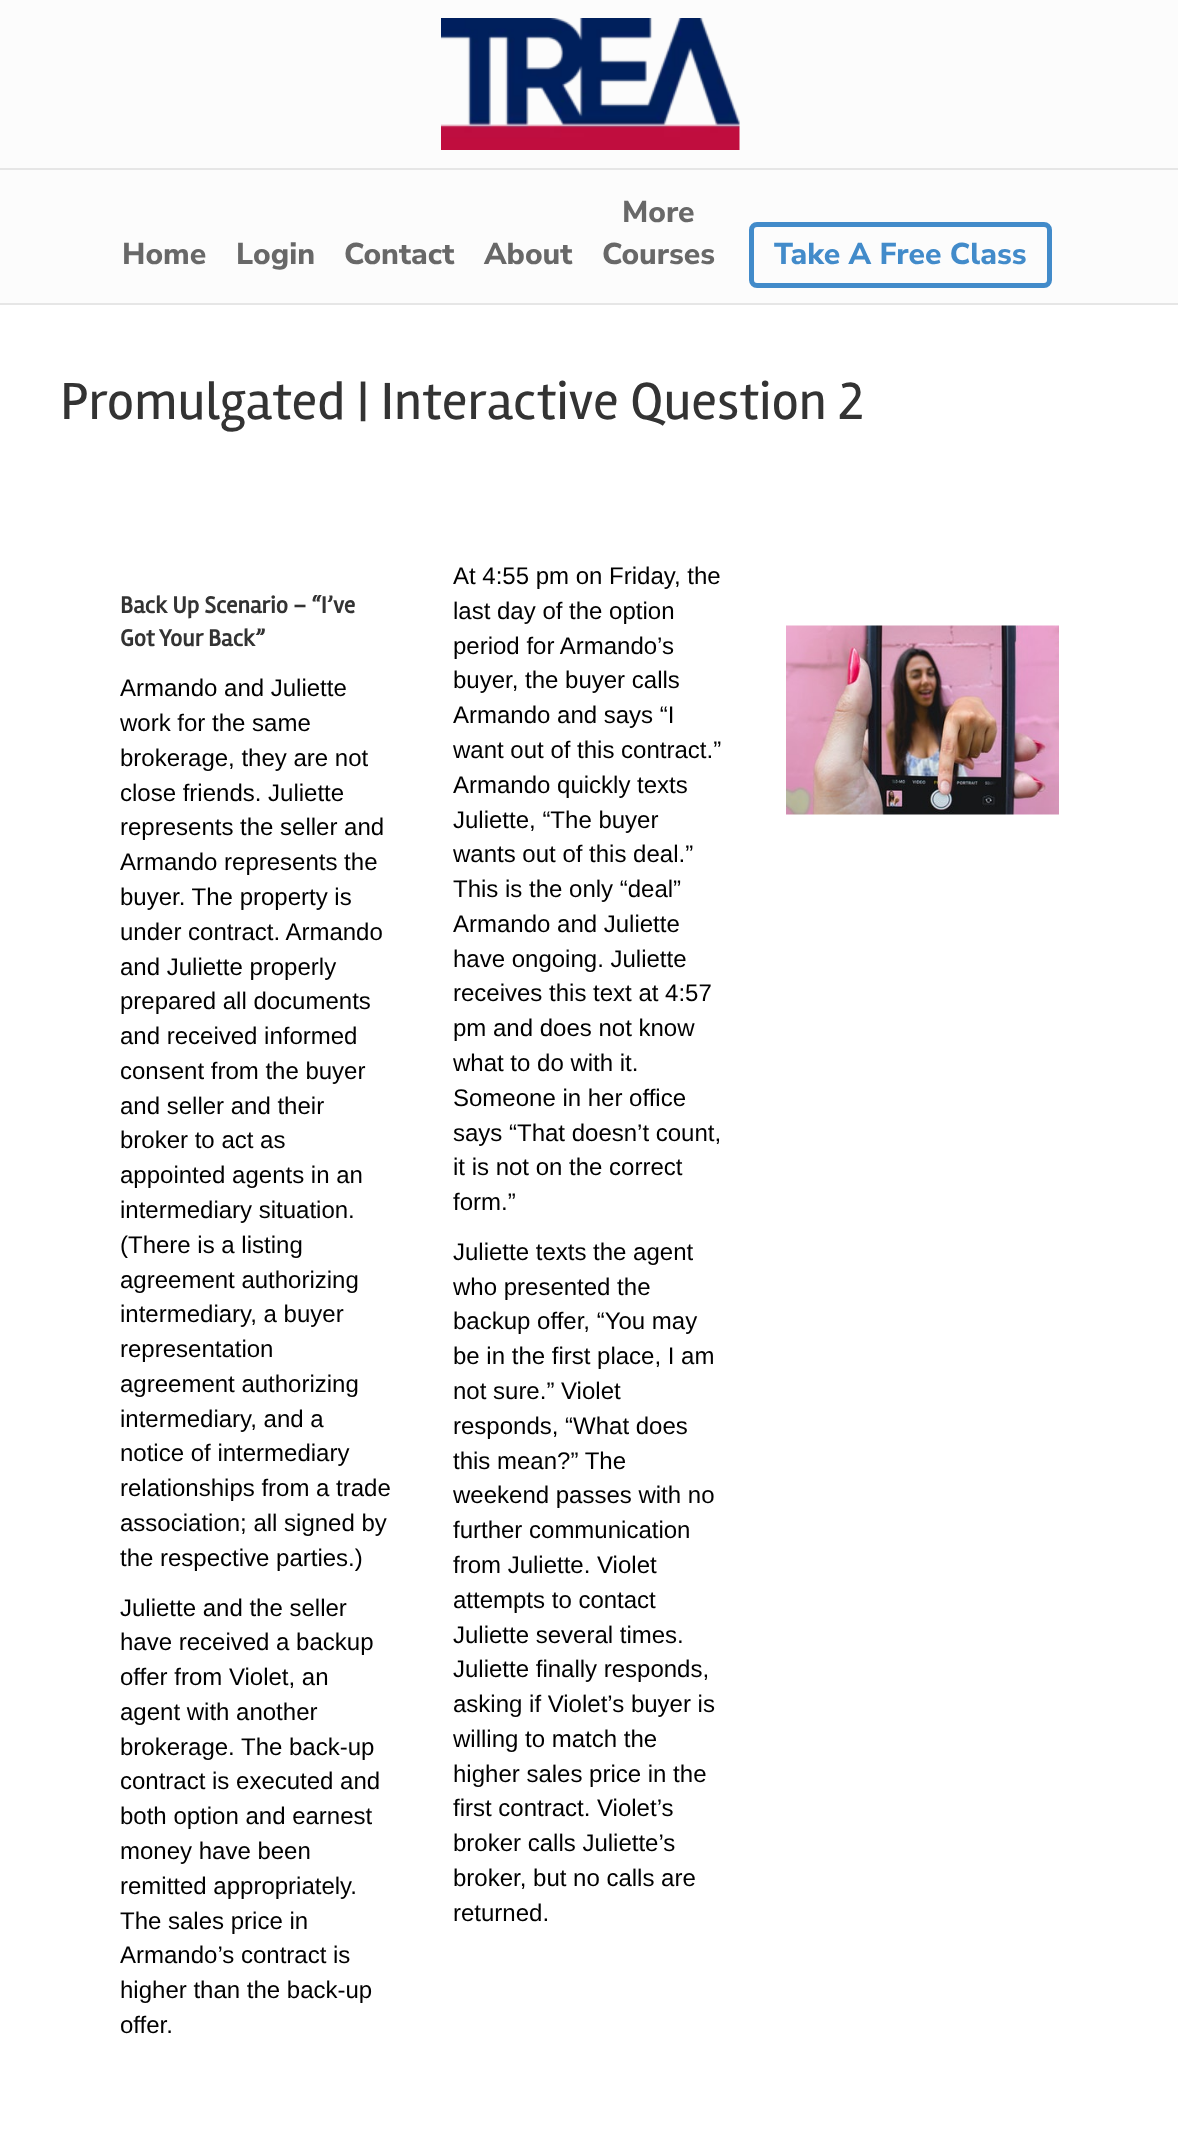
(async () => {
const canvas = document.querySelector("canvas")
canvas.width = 1178
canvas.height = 2138
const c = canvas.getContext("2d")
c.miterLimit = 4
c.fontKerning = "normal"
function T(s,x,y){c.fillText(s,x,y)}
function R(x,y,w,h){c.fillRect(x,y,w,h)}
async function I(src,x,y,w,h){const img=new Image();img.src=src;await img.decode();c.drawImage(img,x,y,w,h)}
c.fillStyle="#fcfcfc"
R(0,0,1178,2138)
await I("1.png",441,18,299,132)
c.fillStyle="#e6e6e6"
R(0,168,1178,2)
R(0,303,1178,2)
c.font="200 30px Nunito Sans"
c.fillStyle="#686868"
T("Home",122,264)
T("Login",236,264)
T("Contact",344,264)
T("About",484,264)
T("More",622,222)
T("Courses",602,264)
c.beginPath()
c.roundRect(751.5,224.5,298,61,5.5)
c.strokeStyle="#428bca"
c.lineWidth=5
c.stroke()
c.fillStyle="#428bca"
T("Take A Free Class",774,264)
c.fillStyle="#fff"
R(0,305,1178,1833)
c.font="54px Rambla"
c.fillStyle="#333"
T("Promulgated | Interactive Question 2",60,419)
c.font="bold 24px Rambla"
T("Back Up Scenario – “I’ve",120,613)
T("Got Your Back”",120,646)
c.font="24px Liberation Sans"
c.fillStyle="#000"
T("Armando and Juliette",120,696)
T("work for the same",120,731)
T("brokerage, they are not",120,766)
T("close friends. Juliette",120,801)
T("represents the seller and",120,835)
T("Armando represents the",120,870)
T("buyer. The property is",120,905)
T("under contract. Armando",120,940)
T("and Juliette properly",120,975)
T("prepared all documents",120,1009)
T("and received informed",120,1044)
T("consent from the buyer",120,1079)
T("and seller and their",120,1114)
T("broker to act as",120,1148)
T("appointed agents in an",120,1183)
T("intermediary situation.",120,1218)
T("(There is a listing",120,1253)
T("agreement authorizing",120,1288)
T("intermediary, a buyer",120,1322)
T("representation",120,1357)
T("agreement authorizing",120,1392)
T("intermediary, and a",120,1427)
T("notice of intermediary",120,1461)
T("relationships from a trade",120,1496)
T("association; all signed by",120,1531)
T("the respective parties.)",120,1566)
T("Juliette and the seller",120,1616)
T("have received a backup",120,1650)
T("offer from Violet, an",120,1685)
T("agent with another",120,1720)
T("brokerage. The back-up",120,1755)
T("contract is executed and",120,1789)
T("both option and earnest",120,1824)
T("money have been",120,1859)
T("remitted appropriately.",120,1894)
T("The sales price in",120,1929)
T("Armando’s contract is",120,1963)
T("higher than the back-up",120,1998)
T("offer.",120,2033)
T("At 4:55 pm on Friday, the",453,584)
T("last day of the option",453,619)
T("period for Armando’s",453,654)
T("buyer, the buyer calls",453,688)
T("Armando and says “I",453,723)
T("want out of this contract.”",453,758)
T("Armando quickly texts",453,793)
T("Juliette, “The buyer",453,828)
T("wants out of this deal.”",453,862)
T("This is the only “deal”",453,897)
T("Armando and Juliette",453,932)
T("have ongoing. Juliette",453,967)
T("receives this text at 4:57",453,1001)
T("pm and does not know",453,1036)
T("what to do with it.",453,1071)
T("Someone in her office",453,1106)
T("says “That doesn’t count,",453,1141)
T("it is not on the correct",453,1175)
T("form.”",453,1210)
T("Juliette texts the agent",453,1260)
T("who presented the",453,1295)
T("backup offer, “You may",453,1329)
T("be in the first place, I am",453,1364)
T("not sure.” Violet",453,1399)
T("responds, “What does",453,1434)
T("this mean?” The",453,1469)
T("weekend passes with no",453,1503)
T("further communication",453,1538)
T("from Juliette. Violet",453,1573)
T("attempts to contact",453,1608)
T("Juliette several times.",453,1643)
T("Juliette finally responds,",453,1677)
T("asking if Violet’s buyer is",453,1712)
T("willing to match the",453,1747)
T("higher sales price in the",453,1782)
T("first contract. Violet’s",453,1816)
T("broker calls Juliette’s",453,1851)
T("broker, but no calls are",453,1886)
T("returned.",453,1921)
await I("2.png",786,625,273,190)
})()
